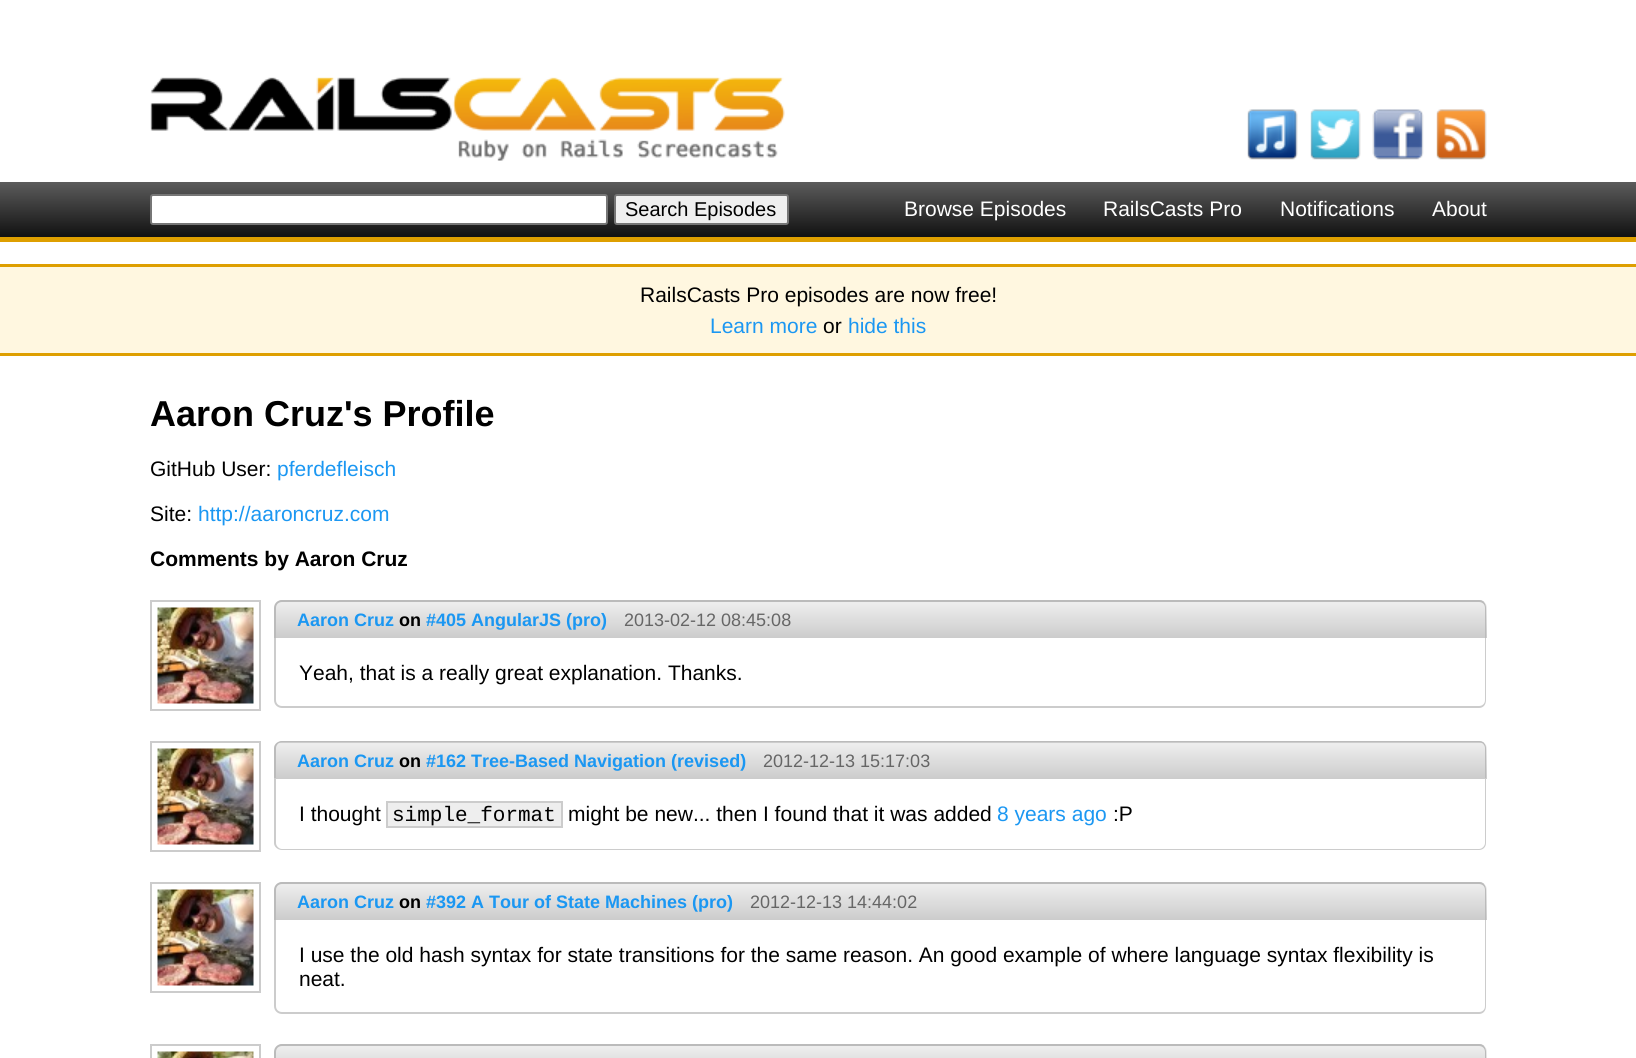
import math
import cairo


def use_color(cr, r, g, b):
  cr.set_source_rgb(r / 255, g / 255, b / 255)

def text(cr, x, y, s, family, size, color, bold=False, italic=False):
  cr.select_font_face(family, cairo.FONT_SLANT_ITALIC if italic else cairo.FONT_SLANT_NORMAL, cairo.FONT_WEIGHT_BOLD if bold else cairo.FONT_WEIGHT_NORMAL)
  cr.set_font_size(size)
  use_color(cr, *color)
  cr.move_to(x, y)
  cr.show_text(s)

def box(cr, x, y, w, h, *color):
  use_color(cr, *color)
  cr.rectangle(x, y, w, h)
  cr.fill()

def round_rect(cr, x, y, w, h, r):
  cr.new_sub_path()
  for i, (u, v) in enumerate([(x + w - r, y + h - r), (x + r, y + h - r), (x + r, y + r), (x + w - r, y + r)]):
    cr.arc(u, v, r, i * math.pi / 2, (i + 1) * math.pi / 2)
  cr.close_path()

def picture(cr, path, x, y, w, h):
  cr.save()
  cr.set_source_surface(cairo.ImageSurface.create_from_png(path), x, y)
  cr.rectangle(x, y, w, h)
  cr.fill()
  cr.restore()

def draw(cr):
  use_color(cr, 255, 255, 255)
  cr.paint()
  picture(cr, "img_01.png", 150, 77, 635, 84)
  picture(cr, "img_02.png", 1247, 109, 51, 51)
  picture(cr, "img_03.png", 1310, 109, 51, 51)
  picture(cr, "img_04.png", 1372, 109, 52, 51)
  picture(cr, "img_05.png", 1436, 109, 51, 51)
  gradient = cairo.LinearGradient(0, 182, 0, 237)
  gradient.add_color_stop_rgba(0, 0.361, 0.361, 0.361, 1)
  gradient.add_color_stop_rgba(1, 0.067, 0.067, 0.067, 1)
  cr.set_source(gradient)
  cr.rectangle(0, 182, 1636, 55)
  cr.fill()
  box(cr, 0, 237, 1636, 5, 222, 159, 0)
  use_color(cr, 255, 255, 255)
  round_rect(cr, 151, 195, 456, 29, 2)
  cr.fill_preserve()
  use_color(cr, 118, 118, 118)
  cr.stroke()
  use_color(cr, 239, 239, 239)
  round_rect(cr, 615, 195, 173, 29, 2)
  cr.fill_preserve()
  use_color(cr, 118, 118, 118)
  cr.stroke()
  box(cr, 0, 267, 1636, 86, 255, 247, 224)
  box(cr, 0, 264, 1636, 3, 222, 159, 0)
  box(cr, 0, 353, 1636, 3, 222, 159, 0)
  cr.rectangle(151, 601, 109, 109)
  use_color(cr, 204, 204, 204)
  cr.stroke()
  picture(cr, "img_06.png", 157, 607, 97, 97)
  cr.save()
  cr.new_path()
  cr.move_to(283, 600)
  cr.line_to(1479, 600)
  cr.curve_to(1483.5, 600, 1487, 603.5, 1487, 608)
  cr.line_to(1487, 638)
  cr.line_to(275, 638)
  cr.line_to(275, 608)
  cr.curve_to(275, 603.5, 278.5, 600, 283, 600)
  cr.close_path()
  cr.clip()
  gradient = cairo.LinearGradient(276, 566, 276, 602)
  gradient.add_color_stop_rgba(0, 0.933, 0.933, 0.933, 1)
  gradient.add_color_stop_rgba(1, 0.8, 0.8, 0.8, 1)
  cr.set_source(gradient)
  cr.rectangle(275, 600, 1212, 2)
  cr.fill()
  gradient = cairo.LinearGradient(276, 602, 276, 638)
  gradient.add_color_stop_rgba(0, 0.933, 0.933, 0.933, 1)
  gradient.add_color_stop_rgba(1, 0.8, 0.8, 0.8, 1)
  cr.set_source(gradient)
  cr.rectangle(276, 602, 1211, 36)
  cr.fill()
  cr.restore()
  use_color(cr, 187, 187, 187)
  cr.set_fill_rule(cairo.FILL_RULE_EVEN_ODD)
  cr.new_path()
  cr.move_to(282, 600)
  cr.line_to(1479, 600)
  cr.curve_to(1483, 600, 1486, 603, 1486, 608)
  cr.line_to(1486, 638)
  cr.line_to(274, 638)
  cr.line_to(274, 608)
  cr.curve_to(274, 603, 278, 600, 282, 600)
  cr.close_path()
  cr.move_to(282, 602)
  cr.line_to(1479, 602)
  cr.curve_to(1482, 602, 1485, 604, 1485, 608)
  cr.line_to(1485, 638)
  cr.line_to(276, 638)
  cr.line_to(276, 608)
  cr.curve_to(276, 604, 279, 602, 282, 602)
  cr.close_path()
  cr.fill()
  use_color(cr, 204, 204, 204)
  cr.new_path()
  cr.move_to(274, 638)
  cr.line_to(1486, 638)
  cr.line_to(1486, 700)
  cr.curve_to(1486, 705, 1483, 708, 1479, 708)
  cr.line_to(282, 708)
  cr.curve_to(278, 708, 274, 705, 274, 700)
  cr.close_path()
  cr.move_to(276, 638)
  cr.line_to(1485, 638)
  cr.line_to(1485, 700)
  cr.curve_to(1485, 704, 1482, 706, 1479, 706)
  cr.line_to(282, 706)
  cr.curve_to(279, 706, 276, 704, 276, 700)
  cr.close_path()
  cr.fill()
  cr.rectangle(151, 742, 109, 109)
  cr.stroke()
  picture(cr, "img_06.png", 157, 748, 97, 97)
  cr.save()
  cr.set_fill_rule(cairo.FILL_RULE_WINDING)
  cr.new_path()
  cr.move_to(283, 741)
  cr.line_to(1479, 741)
  cr.curve_to(1483.5, 741, 1487, 744.5, 1487, 749)
  cr.line_to(1487, 779)
  cr.line_to(275, 779)
  cr.line_to(275, 749)
  cr.curve_to(275, 744.5, 278.5, 741, 283, 741)
  cr.close_path()
  cr.clip()
  gradient = cairo.LinearGradient(276, 707, 276, 743)
  gradient.add_color_stop_rgba(0, 0.933, 0.933, 0.933, 1)
  gradient.add_color_stop_rgba(1, 0.8, 0.8, 0.8, 1)
  cr.set_source(gradient)
  cr.rectangle(275, 741, 1212, 2)
  cr.fill()
  gradient = cairo.LinearGradient(276, 743, 276, 779)
  gradient.add_color_stop_rgba(0, 0.933, 0.933, 0.933, 1)
  gradient.add_color_stop_rgba(1, 0.8, 0.8, 0.8, 1)
  cr.set_source(gradient)
  cr.rectangle(276, 743, 1211, 36)
  cr.fill()
  cr.restore()
  use_color(cr, 187, 187, 187)
  cr.new_path()
  cr.move_to(282, 741)
  cr.line_to(1479, 741)
  cr.curve_to(1483, 741, 1486, 744, 1486, 748)
  cr.line_to(1486, 778)
  cr.line_to(274, 778)
  cr.line_to(274, 748)
  cr.curve_to(274, 744, 278, 741, 282, 741)
  cr.close_path()
  cr.move_to(282, 742)
  cr.line_to(1479, 742)
  cr.curve_to(1482, 742, 1485, 745, 1485, 748)
  cr.line_to(1485, 778)
  cr.line_to(276, 778)
  cr.line_to(276, 748)
  cr.curve_to(276, 745, 279, 742, 282, 742)
  cr.close_path()
  cr.fill()
  use_color(cr, 204, 204, 204)
  cr.new_path()
  cr.move_to(274, 778)
  cr.line_to(1486, 778)
  cr.line_to(1486, 843)
  cr.curve_to(1486, 847, 1483, 850, 1479, 850)
  cr.line_to(282, 850)
  cr.curve_to(278, 850, 274, 847, 274, 843)
  cr.close_path()
  cr.move_to(276, 778)
  cr.line_to(1485, 778)
  cr.line_to(1485, 843)
  cr.curve_to(1485, 846, 1482, 849, 1479, 849)
  cr.line_to(282, 849)
  cr.curve_to(279, 849, 276, 846, 276, 843)
  cr.close_path()
  cr.fill()
  use_color(cr, 238, 238, 238)
  cr.rectangle(387, 802, 175, 25)
  cr.fill_preserve()
  use_color(cr, 204, 204, 204)
  cr.stroke()
  cr.rectangle(151, 883, 109, 109)
  cr.stroke()
  picture(cr, "img_06.png", 157, 889, 97, 97)
  cr.save()
  cr.set_fill_rule(cairo.FILL_RULE_WINDING)
  cr.new_path()
  cr.move_to(283, 882)
  cr.line_to(1479, 882)
  cr.curve_to(1483.5, 882, 1487, 885.5, 1487, 890)
  cr.line_to(1487, 920)
  cr.line_to(275, 920)
  cr.line_to(275, 890)
  cr.curve_to(275, 885.5, 278.5, 882, 283, 882)
  cr.close_path()
  cr.clip()
  gradient = cairo.LinearGradient(276, 848, 276, 884)
  gradient.add_color_stop_rgba(0, 0.933, 0.933, 0.933, 1)
  gradient.add_color_stop_rgba(1, 0.8, 0.8, 0.8, 1)
  cr.set_source(gradient)
  cr.rectangle(275, 882, 1212, 2)
  cr.fill()
  gradient = cairo.LinearGradient(276, 884, 276, 920)
  gradient.add_color_stop_rgba(0, 0.933, 0.933, 0.933, 1)
  gradient.add_color_stop_rgba(1, 0.8, 0.8, 0.8, 1)
  cr.set_source(gradient)
  cr.rectangle(276, 884, 1211, 36)
  cr.fill()
  cr.restore()
  use_color(cr, 187, 187, 187)
  cr.new_path()
  cr.move_to(282, 882)
  cr.line_to(1479, 882)
  cr.curve_to(1483, 882, 1486, 885, 1486, 890)
  cr.line_to(1486, 920)
  cr.line_to(274, 920)
  cr.line_to(274, 890)
  cr.curve_to(274, 885, 278, 882, 282, 882)
  cr.close_path()
  cr.move_to(282, 884)
  cr.line_to(1479, 884)
  cr.curve_to(1482, 884, 1485, 886, 1485, 890)
  cr.line_to(1485, 920)
  cr.line_to(276, 920)
  cr.line_to(276, 890)
  cr.curve_to(276, 886, 279, 884, 282, 884)
  cr.close_path()
  cr.fill()
  use_color(cr, 204, 204, 204)
  cr.new_path()
  cr.move_to(274, 920)
  cr.line_to(1486, 920)
  cr.line_to(1486, 1006)
  cr.curve_to(1486, 1011, 1483, 1014, 1479, 1014)
  cr.line_to(282, 1014)
  cr.curve_to(278, 1014, 274, 1011, 274, 1006)
  cr.close_path()
  cr.move_to(276, 920)
  cr.line_to(1485, 920)
  cr.line_to(1485, 1006)
  cr.curve_to(1485, 1010, 1482, 1012, 1479, 1012)
  cr.line_to(282, 1012)
  cr.curve_to(279, 1012, 276, 1010, 276, 1006)
  cr.close_path()
  cr.fill()
  cr.rectangle(151, 1045, 109, 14)
  cr.stroke()
  picture(cr, "img_07.png", 157, 1051, 97, 7)
  cr.save()
  cr.set_fill_rule(cairo.FILL_RULE_WINDING)
  cr.new_path()
  cr.move_to(283, 1044)
  cr.line_to(1479, 1044)
  cr.curve_to(1483.5, 1044, 1487, 1047.5, 1487, 1052)
  cr.line_to(1487, 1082)
  cr.line_to(275, 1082)
  cr.line_to(275, 1052)
  cr.curve_to(275, 1047.5, 278.5, 1044, 283, 1044)
  cr.close_path()
  cr.clip()
  gradient = cairo.LinearGradient(276, 1010, 276, 1046)
  gradient.add_color_stop_rgba(0, 0.933, 0.933, 0.933, 1)
  gradient.add_color_stop_rgba(1, 0.8, 0.8, 0.8, 1)
  cr.set_source(gradient)
  cr.rectangle(275, 1044, 1212, 2)
  cr.fill()
  gradient = cairo.LinearGradient(276, 1046, 276, 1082)
  gradient.add_color_stop_rgba(0, 0.933, 0.933, 0.933, 1)
  gradient.add_color_stop_rgba(1, 0.8, 0.8, 0.8, 1)
  cr.set_source(gradient)
  cr.rectangle(276, 1046, 1211, 12)
  cr.fill()
  cr.restore()
  use_color(cr, 187, 187, 187)
  cr.new_path()
  cr.move_to(282, 1044)
  cr.line_to(1479, 1044)
  cr.curve_to(1483, 1044, 1486, 1047, 1486, 1052)
  cr.line_to(1486, 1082)
  cr.line_to(274, 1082)
  cr.line_to(274, 1052)
  cr.curve_to(274, 1047, 278, 1044, 282, 1044)
  cr.close_path()
  cr.move_to(282, 1046)
  cr.line_to(1479, 1046)
  cr.curve_to(1482, 1046, 1485, 1048, 1485, 1052)
  cr.line_to(1485, 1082)
  cr.line_to(276, 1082)
  cr.line_to(276, 1052)
  cr.curve_to(276, 1048, 279, 1046, 282, 1046)
  cr.close_path()
  cr.fill()
  text(cr, 625, 216, "Search Episodes", "Liberation Sans", 20, (0, 0, 0))
  text(cr, 904, 216, "Browse Episodes", "Liberation Sans", 21, (255, 255, 255))
  text(cr, 1103, 216, "RailsCasts Pro", "Liberation Sans", 21, (255, 255, 255))
  text(cr, 1280, 216, "Notifications", "Liberation Sans", 21, (255, 255, 255))
  text(cr, 1432, 216, "About", "Liberation Sans", 21, (255, 255, 255))
  text(cr, 640, 302, "RailsCasts Pro episodes are now free!", "Liberation Sans", 21, (0, 0, 0))
  text(cr, 710, 333, "Learn more", "Liberation Sans", 21, (27, 151, 242))
  text(cr, 823, 333, "or", "Liberation Sans", 21, (0, 0, 0))
  text(cr, 848, 333, "hide this", "Liberation Sans", 21, (27, 151, 242))
  text(cr, 150, 426, "Aaron Cruz's Profile", "Liberation Sans", 36, (0, 0, 0), bold=True)
  text(cr, 150, 476, "GitHub User:", "Liberation Sans", 21, (0, 0, 0))
  text(cr, 277, 476, "pferdefleisch", "Liberation Sans", 21, (27, 151, 242))
  text(cr, 150, 521, "Site:", "Liberation Sans", 21, (0, 0, 0))
  text(cr, 198, 521, "http://aaroncruz.com", "Liberation Sans", 21, (27, 151, 242))
  text(cr, 150, 566, "Comments by Aaron Cruz", "Liberation Sans", 21, (0, 0, 0), bold=True)
  text(cr, 297, 626, "Aaron Cruz", "Liberation Sans", 18, (27, 151, 242), bold=True)
  text(cr, 399, 626, "on", "Liberation Sans", 18, (0, 0, 0), bold=True)
  text(cr, 426, 626, "#405 AngularJS (pro)", "Liberation Sans", 18, (27, 151, 242), bold=True)
  text(cr, 624, 626, "2013-02-12 08:45:08", "Liberation Sans", 18, (102, 102, 102))
  text(cr, 299, 680, "Yeah, that is a really great explanation. Thanks.", "Liberation Sans", 21, (0, 0, 0))
  text(cr, 297, 767, "Aaron Cruz", "Liberation Sans", 18, (27, 151, 242), bold=True)
  text(cr, 399, 767, "on", "Liberation Sans", 18, (0, 0, 0), bold=True)
  text(cr, 426, 767, "#162 Tree-Based Navigation (revised)", "Liberation Sans", 18, (27, 151, 242), bold=True)
  text(cr, 763, 767, "2012-12-13 15:17:03", "Liberation Sans", 18, (102, 102, 102))
  text(cr, 299, 821, "I thought", "Liberation Sans", 21, (0, 0, 0))
  text(cr, 392, 821, "simple_format", "Liberation Mono", 21, (0, 0, 0))
  text(cr, 568, 821, "might be new... then I found that it was added", "Liberation Sans", 21, (0, 0, 0))
  text(cr, 997, 821, "8 years ago", "Liberation Sans", 21, (27, 151, 242))
  text(cr, 1113, 821, ":P", "Liberation Sans", 21, (0, 0, 0))
  text(cr, 297, 908, "Aaron Cruz", "Liberation Sans", 18, (27, 151, 242), bold=True)
  text(cr, 399, 908, "on", "Liberation Sans", 18, (0, 0, 0), bold=True)
  text(cr, 426, 908, "#392 A Tour of State Machines (pro)", "Liberation Sans", 18, (27, 151, 242), bold=True)
  text(cr, 750, 908, "2012-12-13 14:44:02", "Liberation Sans", 18, (102, 102, 102))
  text(cr, 299, 962, "I use the old hash syntax for state transitions for the same reason. An good example of where language syntax flexibility is", "Liberation Sans", 21, (0, 0, 0))
  text(cr, 299, 986, "neat.", "Liberation Sans", 21, (0, 0, 0))


surface = cairo.ImageSurface(cairo.FORMAT_RGB24, 1636, 1058)
cr = cairo.Context(surface)
options = cairo.FontOptions()
options.set_hint_metrics(cairo.HINT_METRICS_OFF)
options.set_hint_style(cairo.HINT_STYLE_NONE)
cr.set_font_options(options)
cr.set_miter_limit(4)
draw(cr)
surface.write_to_png("out.png")
